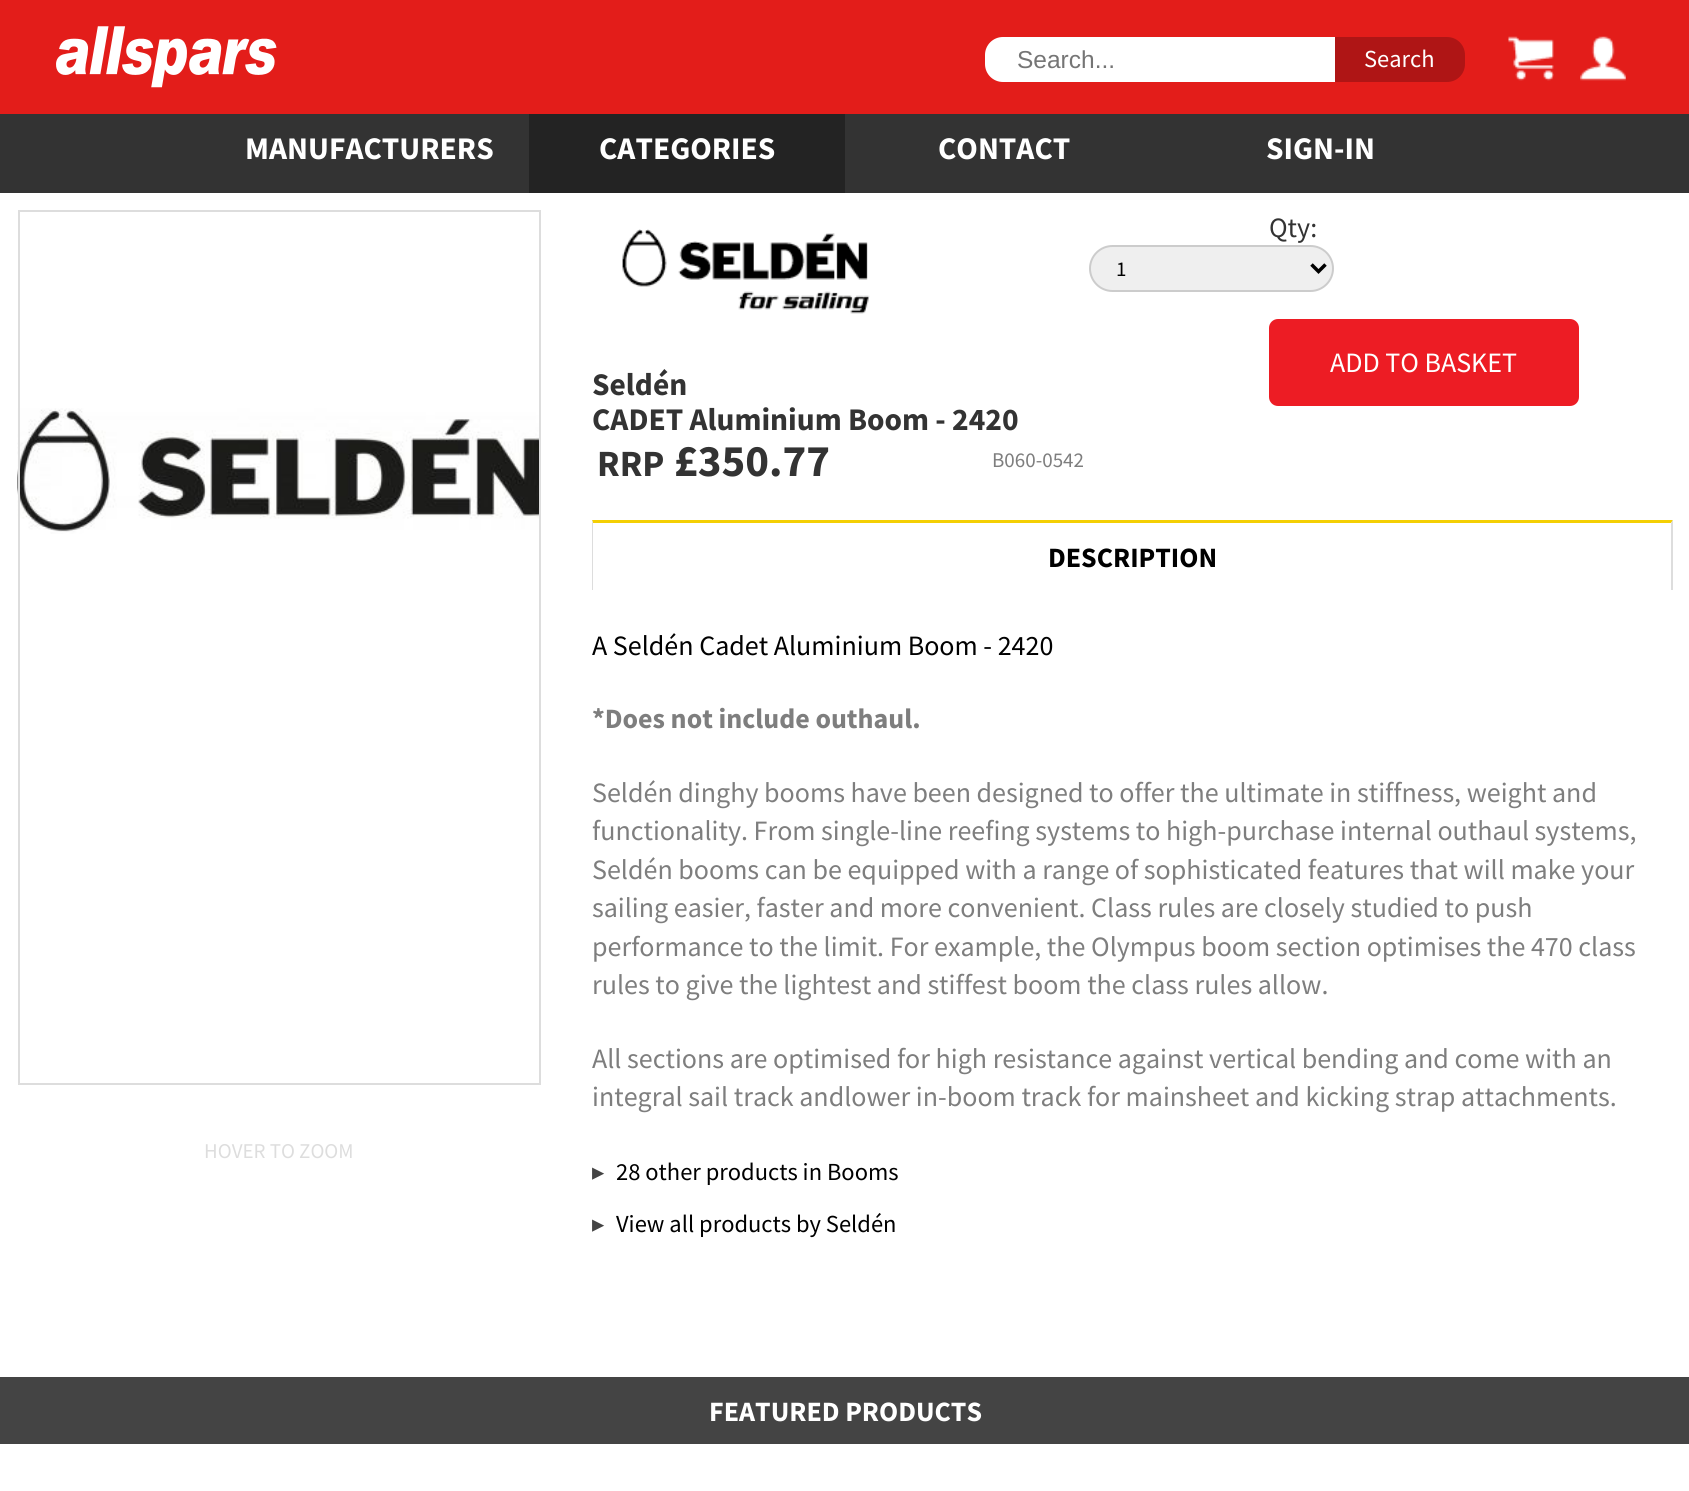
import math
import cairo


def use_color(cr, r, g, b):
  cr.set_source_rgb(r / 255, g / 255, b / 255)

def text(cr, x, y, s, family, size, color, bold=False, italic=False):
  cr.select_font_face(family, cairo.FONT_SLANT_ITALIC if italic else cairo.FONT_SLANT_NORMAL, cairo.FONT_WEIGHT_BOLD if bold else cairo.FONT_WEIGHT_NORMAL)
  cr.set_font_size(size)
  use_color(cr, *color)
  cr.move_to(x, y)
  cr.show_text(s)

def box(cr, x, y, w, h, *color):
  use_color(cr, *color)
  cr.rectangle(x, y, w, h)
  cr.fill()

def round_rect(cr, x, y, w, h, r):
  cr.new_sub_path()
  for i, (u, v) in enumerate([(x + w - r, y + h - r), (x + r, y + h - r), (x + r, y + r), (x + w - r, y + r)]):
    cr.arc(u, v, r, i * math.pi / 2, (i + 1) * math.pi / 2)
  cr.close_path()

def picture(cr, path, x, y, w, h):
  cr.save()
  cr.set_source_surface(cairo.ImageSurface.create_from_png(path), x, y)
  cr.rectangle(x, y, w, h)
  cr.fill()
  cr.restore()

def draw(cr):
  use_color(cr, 255, 255, 255)
  cr.paint()
  box(cr, 0, 0, 1689, 114, 227, 29, 26)
  picture(cr, "img_01.png", 56, 26, 221, 62)
  use_color(cr, 255, 255, 255)
  cr.new_path()
  cr.move_to(1003, 37)
  cr.line_to(1335, 37)
  cr.line_to(1335, 82)
  cr.line_to(1003, 82)
  cr.curve_to(993, 82, 985, 74, 985, 64)
  cr.line_to(985, 55)
  cr.curve_to(985, 45, 993, 37, 1003, 37)
  cr.close_path()
  cr.fill()
  use_color(cr, 175, 21, 21)
  cr.new_path()
  cr.move_to(1335, 37)
  cr.line_to(1447, 37)
  cr.curve_to(1457, 37, 1465, 45, 1465, 55)
  cr.line_to(1465, 64)
  cr.curve_to(1465, 74, 1457, 82, 1447, 82)
  cr.line_to(1335, 82)
  cr.close_path()
  cr.fill()
  picture(cr, "img_02.png", 1508, 36, 46, 45)
  picture(cr, "img_03.png", 1580, 36, 46, 45)
  box(cr, 0, 114, 1689, 79, 51, 51, 51)
  box(cr, 529, 114, 316, 79, 35, 35, 35)
  use_color(cr, 239, 239, 239)
  round_rect(cr, 1090, 246, 243, 45, 22.5)
  cr.fill_preserve()
  use_color(cr, 204, 204, 204)
  cr.stroke()
  cr.new_path()
  cr.move_to(1311.5, 264.5)
  cr.line_to(1318.5, 271.5)
  cr.line_to(1325.5, 264.5)
  use_color(cr, 0, 0, 0)
  cr.set_line_width(3.5)
  cr.stroke()
  use_color(cr, 237, 28, 36)
  round_rect(cr, 1269, 319, 310, 87, 9)
  cr.fill()
  picture(cr, "img_04.png", 622, 229, 248, 85)
  picture(cr, "img_05.png", 17, 408, 522, 126)
  cr.rectangle(19, 211, 521, 873)
  use_color(cr, 221, 221, 221)
  cr.set_line_width(2)
  cr.stroke()
  use_color(cr, 244, 207, 4)
  cr.new_path()
  cr.move_to(592, 520)
  cr.line_to(1673, 520)
  cr.line_to(1671, 523)
  cr.line_to(593, 523)
  cr.close_path()
  cr.fill()
  use_color(cr, 221, 221, 221)
  cr.new_path()
  cr.move_to(1673, 520)
  cr.line_to(1673, 592)
  cr.line_to(1671, 590)
  cr.line_to(1671, 523)
  cr.close_path()
  cr.fill()
  cr.new_path()
  cr.move_to(592, 592)
  cr.line_to(592, 520)
  cr.line_to(593, 523)
  cr.line_to(593, 590)
  cr.close_path()
  cr.fill()
  box(cr, 592, 590, 1081, 2, 255, 255, 255)
  box(cr, 0, 1377, 1689, 67, 68, 68, 68)
  text(cr, 1017, 68, "Search...", "Liberation Sans", 24.5, (117, 117, 117))
  text(cr, 1364, 67, "Search", "Source Sans Pro", 24.5, (255, 255, 255))
  text(cr, 245, 159, "MANUFACTURERS", "Source Sans Pro", 31.5, (255, 255, 255), bold=True)
  text(cr, 599, 159, "CATEGORIES", "Source Sans Pro", 31.5, (255, 255, 255), bold=True)
  text(cr, 938, 159, "CONTACT", "Source Sans Pro", 31.5, (255, 255, 255), bold=True)
  text(cr, 1266, 159, "SIGN-IN", "Source Sans Pro", 31.5, (255, 255, 255), bold=True)
  text(cr, 1269, 237, "Qty:", "Source Sans Pro", 28, (51, 51, 51))
  text(cr, 1116, 276, "1", "Source Sans Pro", 21, (0, 0, 0))
  text(cr, 1330, 372, "ADD TO BASKET", "Source Sans Pro", 28, (255, 255, 255))
  text(cr, 592, 395, "Seldén", "Source Sans Pro", 31.5, (51, 51, 51), bold=True)
  text(cr, 592, 430, "CADET Aluminium Boom - 2420", "Source Sans Pro", 31.5, (51, 51, 51), bold=True)
  text(cr, 597, 476, "RRP", "Source Sans Pro", 37, (51, 51, 51), bold=True)
  text(cr, 674, 476, "£350.77", "Source Sans Pro", 45, (51, 51, 51), bold=True)
  text(cr, 992, 467, "B060-0542", "Source Sans Pro", 21, (126, 126, 126))
  text(cr, 204, 1158, "HOVER TO ZOOM", "Source Sans Pro", 21, (221, 221, 221))
  text(cr, 1048, 567, "DESCRIPTION", "Source Sans Pro", 28, (0, 0, 0), bold=True)
  text(cr, 592, 655, "A Seldén Cadet Aluminium Boom - 2420", "Source Sans Pro", 28, (0, 0, 0))
  text(cr, 592, 728, "*Does not include outhaul.", "Source Sans Pro", 28, (126, 126, 126), bold=True)
  text(cr, 592, 802, "Seldén dinghy booms have been designed to offer the ultimate in stiffness, weight and", "Source Sans Pro", 28, (126, 126, 126))
  text(cr, 592, 840, "functionality. From single-line reefing systems to high-purchase internal outhaul systems,", "Source Sans Pro", 28, (126, 126, 126))
  text(cr, 592, 879, "Seldén booms can be equipped with a range of sophisticated features that will make your", "Source Sans Pro", 28, (126, 126, 126))
  text(cr, 592, 917, "sailing easier, faster and more convenient. Class rules are closely studied to push", "Source Sans Pro", 28, (126, 126, 126))
  text(cr, 592, 956, "performance to the limit. For example, the Olympus boom section optimises the 470 class", "Source Sans Pro", 28, (126, 126, 126))
  text(cr, 592, 994, "rules to give the lightest and stiffest boom the class rules allow.", "Source Sans Pro", 28, (126, 126, 126))
  text(cr, 592, 1068, "All sections are optimised for high resistance against vertical bending and come with an", "Source Sans Pro", 28, (126, 126, 126))
  text(cr, 592, 1106, "integral sail track andlower in-boom track for mainsheet and kicking strap attachments.", "Source Sans Pro", 28, (126, 126, 126))
  cr.save()
  cr.rectangle(592, 607, 1081, 648)
  cr.clip()
  text(cr, 592, 1180, "▸", "DejaVu Sans", 24.5, (68, 68, 68))
  cr.restore()
  text(cr, 616, 1180, "28 other products in Booms", "Source Sans Pro", 24.5, (0, 0, 0))
  cr.save()
  cr.rectangle(592, 607, 1081, 648)
  cr.clip()
  text(cr, 592, 1232, "▸", "DejaVu Sans", 24.5, (68, 68, 68))
  cr.restore()
  text(cr, 616, 1232, "View all products by Seldén", "Source Sans Pro", 24.5, (0, 0, 0))
  text(cr, 709, 1421, "FEATURED PRODUCTS", "Source Sans Pro", 28, (255, 255, 255), bold=True)


surface = cairo.ImageSurface(cairo.FORMAT_RGB24, 1689, 1491)
cr = cairo.Context(surface)
options = cairo.FontOptions()
options.set_hint_metrics(cairo.HINT_METRICS_OFF)
options.set_hint_style(cairo.HINT_STYLE_NONE)
cr.set_font_options(options)
cr.set_miter_limit(4)
draw(cr)
surface.write_to_png("out.png")
